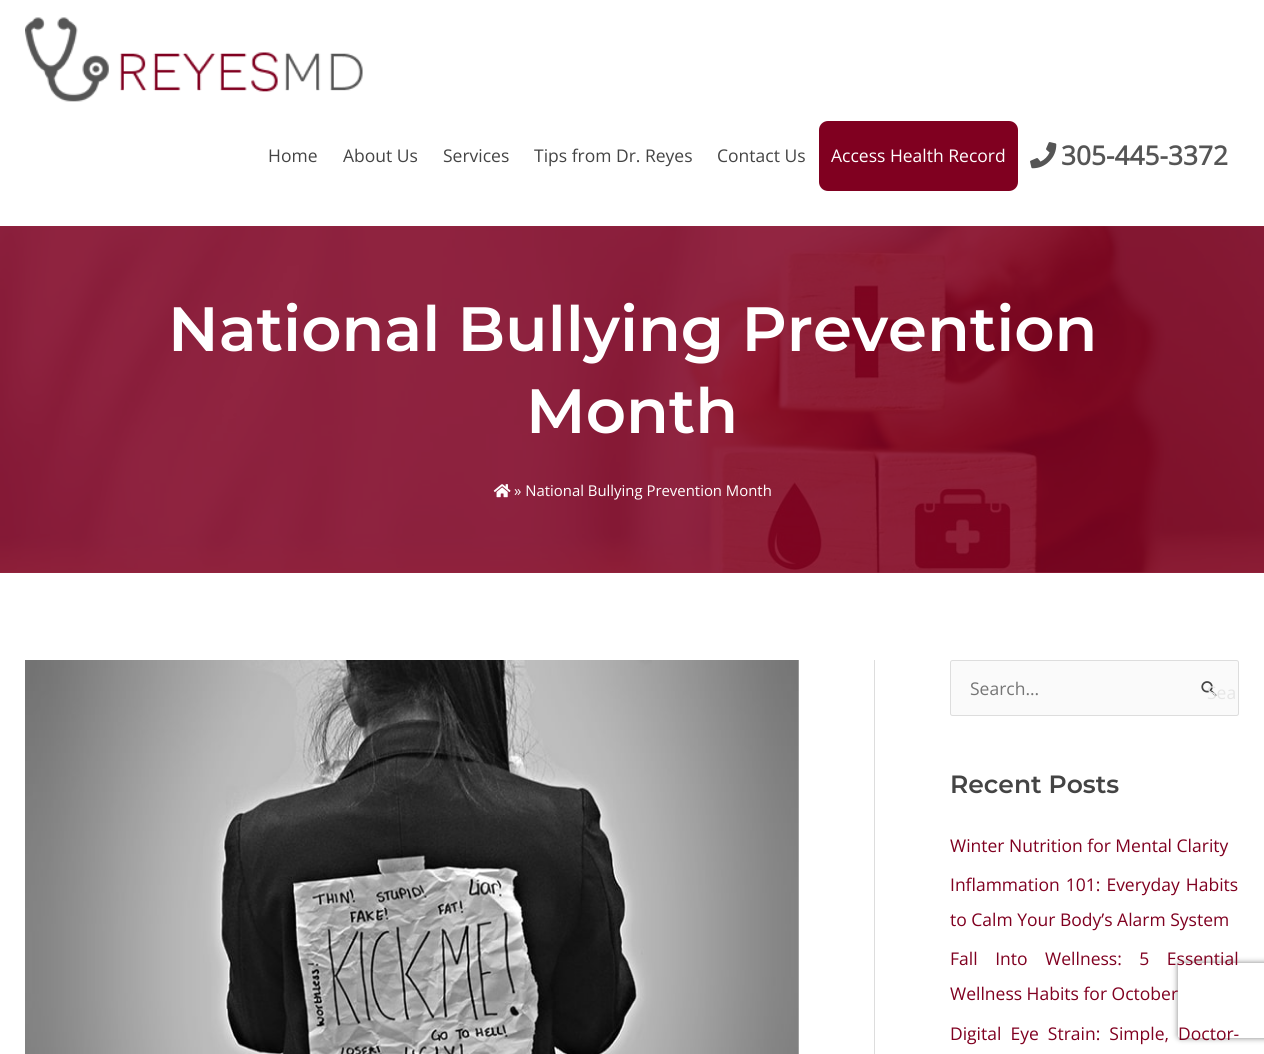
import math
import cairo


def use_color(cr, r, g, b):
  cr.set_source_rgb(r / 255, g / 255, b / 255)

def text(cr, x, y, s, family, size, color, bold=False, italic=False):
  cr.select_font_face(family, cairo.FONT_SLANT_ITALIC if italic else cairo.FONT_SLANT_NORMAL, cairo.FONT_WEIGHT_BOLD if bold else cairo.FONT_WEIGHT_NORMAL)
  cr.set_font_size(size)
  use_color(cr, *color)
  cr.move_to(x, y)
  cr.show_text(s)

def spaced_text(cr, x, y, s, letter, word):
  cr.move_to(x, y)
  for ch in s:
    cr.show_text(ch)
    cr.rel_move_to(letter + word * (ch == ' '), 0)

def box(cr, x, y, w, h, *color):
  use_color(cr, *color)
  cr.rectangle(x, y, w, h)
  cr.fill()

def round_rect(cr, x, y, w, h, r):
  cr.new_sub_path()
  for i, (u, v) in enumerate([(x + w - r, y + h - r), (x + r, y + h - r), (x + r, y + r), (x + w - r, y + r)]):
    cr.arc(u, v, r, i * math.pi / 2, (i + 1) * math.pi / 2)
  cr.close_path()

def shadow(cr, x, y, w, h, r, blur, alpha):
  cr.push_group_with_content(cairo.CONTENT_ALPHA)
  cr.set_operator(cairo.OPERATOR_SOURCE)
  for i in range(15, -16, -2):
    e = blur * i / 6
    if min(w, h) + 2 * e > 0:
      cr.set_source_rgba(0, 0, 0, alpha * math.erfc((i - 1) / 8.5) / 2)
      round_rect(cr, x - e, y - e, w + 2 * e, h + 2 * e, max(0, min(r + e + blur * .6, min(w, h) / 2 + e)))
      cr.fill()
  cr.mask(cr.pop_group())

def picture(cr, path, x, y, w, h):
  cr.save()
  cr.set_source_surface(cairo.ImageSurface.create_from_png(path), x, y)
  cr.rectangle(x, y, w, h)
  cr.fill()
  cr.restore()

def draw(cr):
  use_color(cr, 255, 255, 255)
  cr.paint()
  box(cr, 0, 226, 1264, 347, 147, 38, 65)
  picture(cr, "img_01.png", 25, 17, 338, 85)
  use_color(cr, 128, 0, 32)
  round_rect(cr, 819, 121, 199, 70, 9)
  cr.fill()
  picture(cr, "img_02.png", 1030, 142, 27, 27)
  picture(cr, "img_03.png", 0, 226, 1264, 347)
  picture(cr, "img_04.png", 493, 484, 18, 14)
  box(cr, 874, 660, 1, 394, 221, 221, 221)
  picture(cr, "img_05.png", 25, 660, 774, 394)
  use_color(cr, 250, 250, 250)
  round_rect(cr, 950.5, 660.5, 288, 55, 2)
  cr.fill_preserve()
  use_color(cr, 221, 221, 221)
  cr.set_line_width(1)
  cr.stroke()
  picture(cr, "img_06.png", 1201, 681, 16, 16)
  cr.save()
  cr.set_fill_rule(cairo.FILL_RULE_EVEN_ODD)
  cr.new_path()
  cr.move_to(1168, 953)
  cr.line_to(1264, 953)
  cr.line_to(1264, 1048)
  cr.line_to(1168, 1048)
  cr.close_path()
  cr.move_to(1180.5, 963)
  cr.line_to(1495.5, 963)
  cr.curve_to(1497, 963, 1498, 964, 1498, 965.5)
  cr.line_to(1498, 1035.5)
  cr.curve_to(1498, 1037, 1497, 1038, 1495.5, 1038)
  cr.line_to(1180.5, 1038)
  cr.curve_to(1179, 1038, 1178, 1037, 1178, 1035.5)
  cr.line_to(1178, 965.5)
  cr.curve_to(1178, 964, 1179, 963, 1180.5, 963)
  cr.close_path()
  cr.clip()
  use_color(cr, 128, 128, 128)
  shadow(cr, 1178, 963, 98, 75, 2.5, 3, 1)
  cr.restore()
  text(cr, 268, 162, "Home", "Open Sans", 17.5, (68, 68, 68))
  text(cr, 343, 162, "About Us", "Open Sans", 17.5, (68, 68, 68))
  text(cr, 443, 162, "Services", "Open Sans", 17.5, (68, 68, 68))
  text(cr, 534, 162, "Tips from Dr. Reyes", "Open Sans", 17.5, (68, 68, 68))
  text(cr, 717, 162, "Contact Us", "Open Sans", 17.5, (68, 68, 68))
  text(cr, 831, 162, "Access Health Record", "Open Sans", 17.5, (255, 255, 255))
  text(cr, 1061, 165, "305-445-3372", "Open Sans", 26.25, (85, 85, 85), bold=True)
  text(cr, 168, 351, "National Bullying Prevention", "Montserrat Thin", 62.5, (255, 255, 255))
  text(cr, 526, 433, "Month", "Montserrat Thin", 62.5, (255, 255, 255))
  text(cr, 514, 496, "» National Bullying Prevention Month", "Open Sans", 14.9, (255, 255, 255))
  text(cr, 970, 695, "Search...", "Open Sans", 17.5, (117, 117, 117))
  text(cr, 1207, 699, "Sea", "Open Sans", 17.5, (230, 230, 230))
  text(cr, 950, 793, "Recent Posts", "Montserrat Thin", 25, (68, 68, 68))
  text(cr, 950, 852, "Winter Nutrition for Mental Clarity", "Open Sans", 17.5, (128, 0, 32))
  spaced_text(cr, 950, 891, "Inflammation 101: Everyday Habits", 0, 1.5)
  text(cr, 950, 926, "to Calm Your Body’s Alarm System", "Open Sans", 17.5, (128, 0, 32))
  spaced_text(cr, 950, 965, "Fall Into Wellness: 5 Essential", 0, 13)
  text(cr, 950, 1000, "Wellness Habits for October", "Open Sans", 17.5, (128, 0, 32))
  spaced_text(cr, 950, 1040, "Digital Eye Strain: Simple, Doctor-", 0, 4.5)


surface = cairo.ImageSurface(cairo.FORMAT_RGB24, 1264, 1054)
cr = cairo.Context(surface)
options = cairo.FontOptions()
options.set_hint_metrics(cairo.HINT_METRICS_OFF)
options.set_hint_style(cairo.HINT_STYLE_NONE)
cr.set_font_options(options)
cr.set_miter_limit(4)
draw(cr)
surface.write_to_png("out.png")
